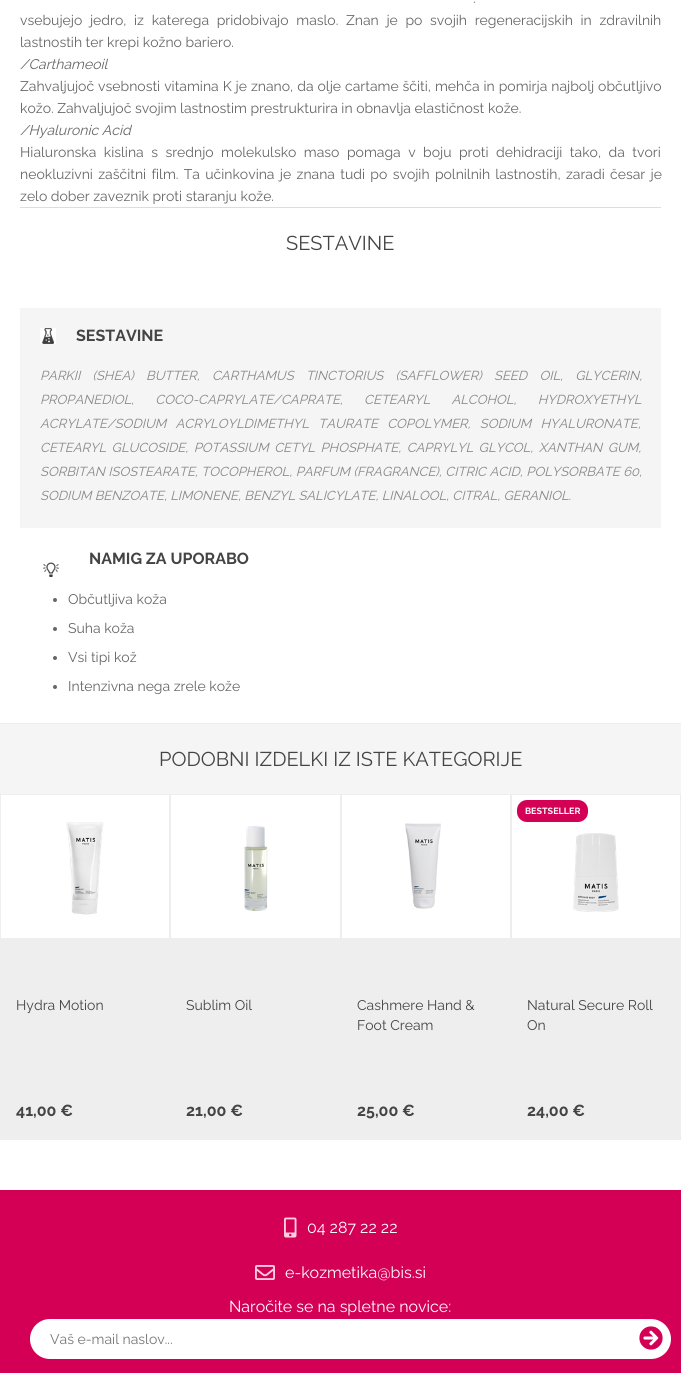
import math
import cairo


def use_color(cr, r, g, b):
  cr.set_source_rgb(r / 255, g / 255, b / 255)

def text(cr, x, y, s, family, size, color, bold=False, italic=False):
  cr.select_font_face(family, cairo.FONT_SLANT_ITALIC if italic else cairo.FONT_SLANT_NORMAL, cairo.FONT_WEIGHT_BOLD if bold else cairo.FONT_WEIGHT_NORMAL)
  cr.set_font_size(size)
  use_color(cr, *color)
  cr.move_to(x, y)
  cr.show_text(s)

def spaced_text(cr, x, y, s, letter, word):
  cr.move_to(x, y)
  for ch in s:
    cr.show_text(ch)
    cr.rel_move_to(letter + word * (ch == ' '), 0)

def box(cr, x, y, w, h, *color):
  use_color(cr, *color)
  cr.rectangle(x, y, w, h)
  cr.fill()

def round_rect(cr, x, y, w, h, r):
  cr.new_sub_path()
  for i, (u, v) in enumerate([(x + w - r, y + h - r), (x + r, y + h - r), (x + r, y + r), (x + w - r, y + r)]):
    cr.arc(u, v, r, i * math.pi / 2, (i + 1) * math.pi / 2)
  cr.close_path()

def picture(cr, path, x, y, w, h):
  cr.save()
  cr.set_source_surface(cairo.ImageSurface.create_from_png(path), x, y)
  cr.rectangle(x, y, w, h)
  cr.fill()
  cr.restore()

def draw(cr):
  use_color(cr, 255, 255, 255)
  cr.paint()
  box(cr, 20, 207, 641, 1, 221, 221, 221)
  box(cr, 20, 308, 641, 220, 245, 245, 245)
  picture(cr, "img_01.png", 40, 328, 16, 16)
  picture(cr, "img_02.png", 43, 562, 16, 15)
  use_color(cr, 102, 102, 102)
  cr.arc(55, 600, 2, 0, 2 * math.pi)
  cr.fill()
  cr.arc(55, 629, 2, 0, 2 * math.pi)
  cr.fill()
  cr.arc(55, 658, 2, 0, 2 * math.pi)
  cr.fill()
  cr.arc(55, 687, 2, 0, 2 * math.pi)
  cr.fill()
  box(cr, 0, 724, 681, 70, 245, 245, 245)
  box(cr, 0, 723, 681, 1, 238, 238, 238)
  box(cr, 0, 794, 681, 346, 238, 238, 238)
  box(cr, 1, 795, 168, 143, 255, 255, 255)
  picture(cr, "img_03.png", 66, 822, 38, 93)
  box(cr, 171, 795, 169, 143, 255, 255, 255)
  picture(cr, "img_04.png", 244, 826, 24, 86)
  box(cr, 342, 795, 168, 143, 255, 255, 255)
  picture(cr, "img_05.png", 405, 823, 36, 86)
  box(cr, 512, 795, 168, 143, 255, 255, 255)
  picture(cr, "img_06.png", 573, 833, 46, 79)
  use_color(cr, 211, 0, 86)
  round_rect(cr, 517, 800, 71, 22, 10)
  cr.fill()
  box(cr, 0, 1190, 681, 183, 211, 0, 86)
  picture(cr, "img_07.png", 284, 1217, 13, 21)
  picture(cr, "img_08.png", 255, 1265, 20, 15)
  use_color(cr, 255, 255, 255)
  round_rect(cr, 30, 1319, 641, 40, 20)
  cr.fill()
  picture(cr, "img_09.png", 639, 1326, 24, 24)
  cr.select_font_face("Raleway")
  cr.set_font_size(14)
  use_color(cr, 102, 102, 102)
  spaced_text(cr, 473, 3, ".", 0, 2)
  spaced_text(cr, 20, 25, "vsebujejo jedro, iz katerega pridobivajo maslo. Znan je po svojih regeneracijskih in zdravilnih", 0, 4.1)
  text(cr, 20, 47, "lastnostih ter krepi kožno bariero.", "Raleway", 14, (102, 102, 102))
  text(cr, 20, 69, "/Carthameoil", "Raleway", 14, (102, 102, 102), italic=True)
  cr.select_font_face("Raleway")
  spaced_text(cr, 20, 91, "Zahvaljujoč vsebnosti vitamina K je znano, da olje cartame ščiti, mehča in pomirja najbolj občutljivo", 0, 0.4)
  text(cr, 20, 113, "kožo. Zahvaljujoč svojim lastnostim prestrukturira in obnavlja elastičnost kože.", "Raleway", 14, (102, 102, 102))
  text(cr, 20, 135, "/Hyaluronic Acid", "Raleway", 14, (102, 102, 102), italic=True)
  cr.select_font_face("Raleway")
  spaced_text(cr, 20, 157, "Hialuronska kislina s srednjo molekulsko maso pomaga v boju proti dehidraciji tako, da tvori", 0, 3.9)
  spaced_text(cr, 20, 179, "neokluzivni zaščitni film. Ta učinkovina je znana tudi po svojih polnilnih lastnostih, zaradi česar je", 0, 1.75)
  text(cr, 20, 201, "zelo dober zaveznik proti staranju kože.", "Raleway", 14, (102, 102, 102))
  text(cr, 286, 250, "SESTAVINE", "Raleway", 20, (68, 68, 68))
  text(cr, 76, 341, "SESTAVINE", "Raleway", 16, (68, 68, 68), bold=True)
  cr.select_font_face("Raleway", cairo.FONT_SLANT_ITALIC)
  cr.set_font_size(13)
  use_color(cr, 136, 136, 136)
  spaced_text(cr, 40, 380, "PARKII (SHEA) BUTTER, CARTHAMUS TINCTORIUS (SAFFLOWER) SEED OIL, GLYCERIN,", 0, 9)
  spaced_text(cr, 40, 404, "PROPANEDIOL, COCO-CAPRYLATE/CAPRATE, CETEARYL ALCOHOL, HYDROXYETHYL", 0, 18)
  spaced_text(cr, 40, 428, "ACRYLATE/SODIUM ACRYLOYLDIMETHYL TAURATE COPOLYMER, SODIUM HYALURONATE,", 0, 6)
  spaced_text(cr, 40, 452, "CETEARYL GLUCOSIDE, POTASSIUM CETYL PHOSPHATE, CAPRYLYL GLYCOL, XANTHAN GUM,", 0, 2.25)
  spaced_text(cr, 40, 476, "SORBITAN ISOSTEARATE, TOCOPHEROL, PARFUM (FRAGRANCE), CITRIC ACID, POLYSORBATE 60,", 0, 0.25)
  text(cr, 40, 500, "SODIUM BENZOATE, LIMONENE, BENZYL SALICYLATE, LINALOOL, CITRAL, GERANIOL.", "Raleway", 13, (136, 136, 136), italic=True)
  text(cr, 89, 564, "NAMIG ZA UPORABO", "Raleway", 16, (68, 68, 68), bold=True)
  text(cr, 68, 604, "Občutljiva koža", "Raleway", 14, (102, 102, 102))
  text(cr, 68, 633, "Suha koža", "Raleway", 14, (102, 102, 102))
  text(cr, 68, 662, "Vsi tipi kož", "Raleway", 14, (102, 102, 102))
  text(cr, 68, 691, "Intenzivna nega zrele kože", "Raleway", 14, (102, 102, 102))
  text(cr, 159, 766, "PODOBNI IZDELKI IZ ISTE KATEGORIJE", "Raleway", 20, (68, 68, 68))
  text(cr, 16, 1010, "Hydra Motion", "Raleway", 14, (68, 68, 68))
  text(cr, 16, 1116, "41,00 €", "Raleway", 16, (68, 68, 68), bold=True)
  text(cr, 186, 1010, "Sublim Oil", "Raleway", 14, (68, 68, 68))
  text(cr, 186, 1116, "21,00 €", "Raleway", 16, (68, 68, 68), bold=True)
  text(cr, 357, 1010, "Cashmere Hand &", "Raleway", 14, (68, 68, 68))
  text(cr, 357, 1030, "Foot Cream", "Raleway", 14, (68, 68, 68))
  text(cr, 357, 1116, "25,00 €", "Raleway", 16, (68, 68, 68), bold=True)
  text(cr, 525, 814, "BESTSELLER", "Raleway", 9, (255, 255, 255), bold=True)
  text(cr, 527, 1010, "Natural Secure Roll", "Raleway", 14, (68, 68, 68))
  text(cr, 527, 1030, "On", "Raleway", 14, (68, 68, 68))
  text(cr, 527, 1116, "24,00 €", "Raleway", 16, (68, 68, 68), bold=True)
  text(cr, 307, 1233, "04 287 22 22", "Raleway", 16, (255, 255, 255))
  text(cr, 285, 1278, "e-kozmetika@bis.si", "Raleway", 16, (255, 255, 255))
  text(cr, 229, 1312, "Naročite se na spletne novice:", "Raleway", 16, (255, 255, 255))
  text(cr, 50, 1344, "Vaš e-mail naslov...", "Raleway", 14, (117, 117, 117))


surface = cairo.ImageSurface(cairo.FORMAT_RGB24, 681, 1373)
cr = cairo.Context(surface)
options = cairo.FontOptions()
options.set_hint_metrics(cairo.HINT_METRICS_OFF)
options.set_hint_style(cairo.HINT_STYLE_NONE)
cr.set_font_options(options)
cr.set_miter_limit(4)
draw(cr)
surface.write_to_png("out.png")
